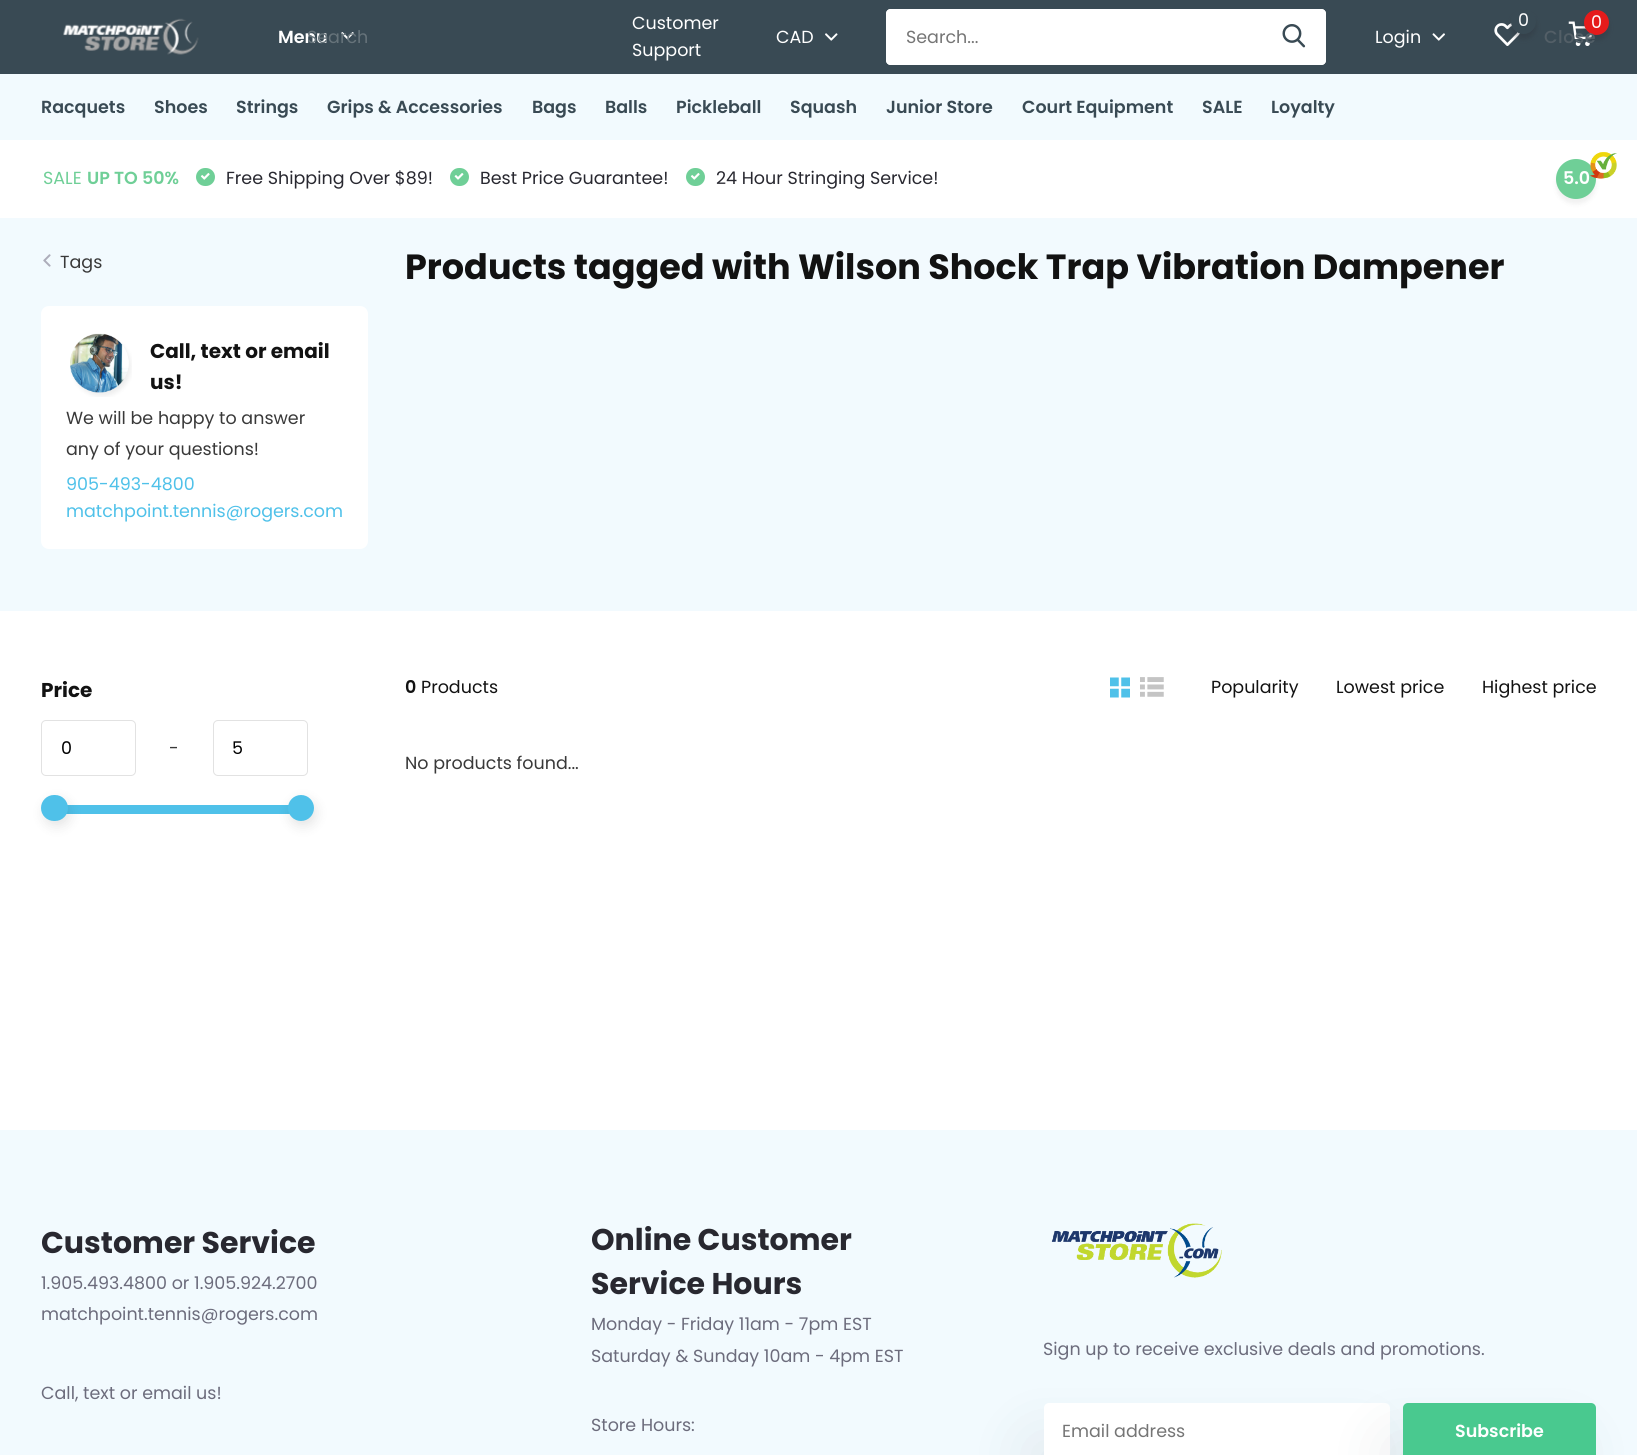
import math
import cairo


def use_color(cr, r, g, b):
  cr.set_source_rgb(r / 255, g / 255, b / 255)

def text(cr, x, y, s, family, size, color, bold=False, italic=False):
  cr.select_font_face(family, cairo.FONT_SLANT_ITALIC if italic else cairo.FONT_SLANT_NORMAL, cairo.FONT_WEIGHT_BOLD if bold else cairo.FONT_WEIGHT_NORMAL)
  cr.set_font_size(size)
  use_color(cr, *color)
  cr.move_to(x, y)
  cr.show_text(s)

def spaced_text(cr, x, y, s, letter, word):
  cr.move_to(x, y)
  for ch in s:
    cr.show_text(ch)
    cr.rel_move_to(letter + word * (ch == ' '), 0)

def box(cr, x, y, w, h, *color):
  use_color(cr, *color)
  cr.rectangle(x, y, w, h)
  cr.fill()

def round_rect(cr, x, y, w, h, r):
  cr.new_sub_path()
  for i, (u, v) in enumerate([(x + w - r, y + h - r), (x + r, y + h - r), (x + r, y + r), (x + w - r, y + r)]):
    cr.arc(u, v, r, i * math.pi / 2, (i + 1) * math.pi / 2)
  cr.close_path()

def shadow(cr, x, y, w, h, r, blur, alpha):
  cr.push_group_with_content(cairo.CONTENT_ALPHA)
  cr.set_operator(cairo.OPERATOR_SOURCE)
  for i in range(15, -16, -2):
    e = blur * i / 6
    if min(w, h) + 2 * e > 0:
      cr.set_source_rgba(0, 0, 0, alpha * math.erfc((i - 1) / 8.5) / 2)
      round_rect(cr, x - e, y - e, w + 2 * e, h + 2 * e, max(0, min(r + e + blur * .6, min(w, h) / 2 + e)))
      cr.fill()
  cr.mask(cr.pop_group())

def picture(cr, path, x, y, w, h):
  cr.save()
  cr.set_source_surface(cairo.ImageSurface.create_from_png(path), x, y)
  cr.rectangle(x, y, w, h)
  cr.fill()
  cr.restore()

def draw(cr):
  use_color(cr, 255, 255, 255)
  cr.paint()
  box(cr, 0, 0, 1637, 74, 57, 74, 84)
  picture(cr, "img_01.png", 63, 18, 136, 37)
  picture(cr, "img_02.png", 341, 32, 13, 8)
  picture(cr, "img_03.png", 825, 33, 13, 8)
  use_color(cr, 255, 255, 255)
  cr.new_path()
  cr.move_to(891, 9)
  cr.line_to(1264, 9)
  cr.line_to(1264, 65)
  cr.line_to(891, 65)
  cr.curve_to(888, 65, 886, 63, 886, 60)
  cr.line_to(886, 14)
  cr.curve_to(886, 11, 888, 9, 891, 9)
  cr.close_path()
  cr.fill()
  cr.set_fill_rule(cairo.FILL_RULE_EVEN_ODD)
  cr.new_path()
  cr.move_to(891, 9)
  cr.line_to(1264, 9)
  cr.line_to(1264, 65)
  cr.line_to(891, 65)
  cr.curve_to(888, 65, 886, 63, 886, 60)
  cr.line_to(886, 14)
  cr.curve_to(886, 11, 888, 9, 891, 9)
  cr.close_path()
  cr.move_to(891, 10)
  cr.line_to(1264, 10)
  cr.line_to(1264, 64)
  cr.line_to(891, 64)
  cr.curve_to(889, 64, 888, 62, 888, 60)
  cr.line_to(888, 14)
  cr.curve_to(888, 12, 889, 10, 891, 10)
  cr.close_path()
  cr.fill()
  cr.new_path()
  cr.move_to(1264, 9)
  cr.line_to(1321, 9)
  cr.curve_to(1324, 9, 1326, 11, 1326, 14)
  cr.line_to(1326, 60)
  cr.curve_to(1326, 63, 1324, 65, 1321, 65)
  cr.line_to(1264, 65)
  cr.close_path()
  cr.fill()
  cr.new_path()
  cr.move_to(1264, 9)
  cr.line_to(1321, 9)
  cr.curve_to(1324, 9, 1326, 11, 1326, 14)
  cr.line_to(1326, 60)
  cr.curve_to(1326, 63, 1324, 65, 1321, 65)
  cr.line_to(1264, 65)
  cr.close_path()
  cr.move_to(1264, 10)
  cr.line_to(1321, 10)
  cr.curve_to(1323, 10, 1325, 12, 1325, 14)
  cr.line_to(1325, 60)
  cr.curve_to(1325, 62, 1323, 64, 1321, 64)
  cr.line_to(1264, 64)
  cr.close_path()
  cr.fill()
  picture(cr, "img_04.png", 1282, 24, 24, 24)
  picture(cr, "img_05.png", 1432, 33, 13, 8)
  picture(cr, "img_06.png", 1494, 23, 26, 23)
  use_color(cr, 40, 40, 48)
  shadow(cr, 1511, 14, 25, 25, 12.5, 2.5, 0.25)
  use_color(cr, 57, 74, 84)
  cr.arc(1523.5, 21.5, 12.5, 0, 2 * math.pi)
  cr.fill()
  picture(cr, "img_07.png", 1568, 21, 25, 25)
  use_color(cr, 40, 40, 48)
  shadow(cr, 1584, 15, 25, 25, 12.5, 2.5, 0.25)
  use_color(cr, 230, 27, 27)
  cr.arc(1596.5, 22.5, 12.5, 0, 2 * math.pi)
  cr.fill()
  box(cr, 0, 74, 1637, 66, 242, 250, 254)
  use_color(cr, 111, 207, 151)
  round_rect(cr, 196, 168, 19, 18, 9)
  cr.fill()
  picture(cr, "img_08.png", 200, 173, 10, 7)
  round_rect(cr, 450, 168, 19, 18, 9)
  cr.fill()
  picture(cr, "img_09.png", 454, 173, 10, 7)
  round_rect(cr, 686, 168, 19, 18, 9)
  cr.fill()
  picture(cr, "img_08.png", 690, 173, 10, 7)
  use_color(cr, 0, 0, 0)
  shadow(cr, 1556, 164, 40, 40, 20, 2.5, 0.06)
  use_color(cr, 111, 207, 151)
  cr.arc(1576, 179, 20, 0, 2 * math.pi)
  cr.fill()
  picture(cr, "img_10.png", 1590, 152, 27, 27)
  box(cr, 0, 218, 1637, 393, 242, 250, 254)
  picture(cr, "img_11.png", 43, 254, 8, 13)
  use_color(cr, 255, 255, 255)
  round_rect(cr, 41, 306, 327, 243, 8)
  cr.fill()
  picture(cr, "img_12.png", 70, 333, 62, 64)
  round_rect(cr, 41.5, 720.5, 94, 55, 4.5)
  use_color(cr, 226, 226, 226)
  cr.set_line_width(1)
  cr.stroke()
  round_rect(cr, 213.5, 720.5, 94, 55, 4.5)
  cr.stroke()
  box(cr, 66, 805, 224, 9, 79, 193, 233)
  use_color(cr, 0, 0, 0)
  shadow(cr, 44, 800, 26, 26, 13, 6, 0.1)
  use_color(cr, 79, 193, 233)
  round_rect(cr, 41, 795, 27, 26, 13)
  cr.fill()
  use_color(cr, 0, 0, 0)
  shadow(cr, 290, 800, 26, 26, 13, 6, 0.1)
  use_color(cr, 79, 193, 233)
  cr.arc(301, 808, 13, 0, 2 * math.pi)
  cr.fill()
  picture(cr, "img_13.png", 1110, 677, 20, 21)
  picture(cr, "img_14.png", 1140, 677, 24, 20)
  box(cr, 0, 1130, 1637, 325, 242, 250, 254)
  picture(cr, "img_15.png", 1051, 1223, 171, 55)
  use_color(cr, 40, 56, 74)
  shadow(cr, 1025, 1434, 346, 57, 5, 31, 0.08)
  use_color(cr, 255, 255, 255)
  round_rect(cr, 1044, 1403, 346, 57, 5)
  cr.fill()
  use_color(cr, 40, 56, 74)
  shadow(cr, 1384, 1434, 194, 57, 5, 31, 0.08)
  use_color(cr, 73, 201, 143)
  round_rect(cr, 1403, 1403, 193, 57, 5)
  cr.fill()
  text(cr, 278, 43, "Menu", "Poppins SemiBold", 17.5, (255, 255, 255))
  text(cr, 632, 29, "Customer", "Poppins", 17.5, (255, 255, 255))
  text(cr, 632, 56, "Support", "Poppins", 17.5, (255, 255, 255))
  text(cr, 776, 43, "CAD", "Poppins", 17.5, (255, 255, 255))
  text(cr, 906, 43, "Search...", "Poppins", 17.5, (117, 117, 117))
  text(cr, 1375, 43, "Login", "Poppins", 17.5, (255, 255, 255))
  text(cr, 1518, 26, "0", "Poppins", 17.5, (255, 255, 255))
  text(cr, 1591, 28, "0", "Poppins", 17.5, (255, 255, 255))
  text(cr, 307, 43, "Search", "Poppins", 17.5, (102, 115, 122))
  cr.select_font_face("Poppins Medium")
  use_color(cr, 83, 95, 103)
  spaced_text(cr, 1544, 43, "Close", 0.5, 0)
  text(cr, 41, 113, "Racquets", "Poppins SemiBold", 17.5, (57, 74, 84))
  text(cr, 154, 113, "Shoes", "Poppins SemiBold", 17.5, (57, 74, 84))
  text(cr, 236, 113, "Strings", "Poppins SemiBold", 17.5, (57, 74, 84))
  text(cr, 327, 113, "Grips & Accessories", "Poppins SemiBold", 17.5, (57, 74, 84))
  text(cr, 532, 113, "Bags", "Poppins SemiBold", 17.5, (57, 74, 84))
  text(cr, 605, 113, "Balls", "Poppins SemiBold", 17.5, (57, 74, 84))
  text(cr, 676, 113, "Pickleball", "Poppins SemiBold", 17.5, (57, 74, 84))
  text(cr, 790, 113, "Squash", "Poppins SemiBold", 17.5, (57, 74, 84))
  text(cr, 886, 113, "Junior Store", "Poppins SemiBold", 17.5, (57, 74, 84))
  text(cr, 1022, 113, "Court Equipment", "Poppins SemiBold", 17.5, (57, 74, 84))
  text(cr, 1202, 113, "SALE", "Poppins SemiBold", 17.5, (57, 74, 84))
  text(cr, 1271, 113, "Loyalty", "Poppins SemiBold", 17.5, (57, 74, 84))
  text(cr, 43, 184, "SALE", "Poppins", 17.5, (111, 207, 151))
  text(cr, 87, 184, "UP TO 50%", "Poppins SemiBold", 17.5, (111, 207, 151))
  text(cr, 226, 184, "Free Shipping Over $89!", "Poppins", 17.5, (40, 40, 48))
  text(cr, 480, 184, "Best Price Guarantee!", "Poppins", 17.5, (40, 40, 48))
  text(cr, 716, 184, "24 Hour Stringing Service!", "Poppins", 17.5, (40, 40, 48))
  text(cr, 1563, 184, "5.0", "Poppins SemiBold", 17.5, (255, 255, 255))
  text(cr, 60, 268, "Tags", "Poppins", 17.5, (57, 57, 57))
  text(cr, 150, 358, "Call, text or email", "Poppins", 20, (18, 18, 18), bold=True)
  text(cr, 150, 389, "us!", "Poppins", 20, (18, 18, 18), bold=True)
  text(cr, 66, 424, "We will be happy to answer", "Poppins", 17.5, (57, 57, 57))
  text(cr, 66, 455, "any of your questions!", "Poppins", 17.5, (57, 57, 57))
  text(cr, 66, 490, "905-493-4800", "Poppins", 17.5, (79, 193, 233))
  text(cr, 66, 517, "matchpoint.tennis@rogers.com", "Poppins", 17.5, (79, 193, 233))
  text(cr, 405, 279, "Products tagged with Wilson Shock Trap Vibration Dampener", "Poppins", 35, (18, 18, 18), bold=True)
  text(cr, 41, 697, "Price", "Poppins", 20, (18, 18, 18), bold=True)
  text(cr, 61, 754, "0", "Poppins", 17.5, (0, 0, 0))
  text(cr, 169, 754, "-", "Poppins", 17.5, (57, 57, 57))
  text(cr, 232, 754, "5", "Poppins", 17.5, (0, 0, 0))
  text(cr, 405, 693, "0", "Poppins SemiBold", 17.5, (18, 18, 18))
  text(cr, 421, 693, "Products", "Poppins", 17.5, (18, 18, 18))
  text(cr, 1211, 693, "Popularity", "Poppins", 17.5, (18, 18, 18))
  text(cr, 1336, 693, "Lowest price", "Poppins", 17.5, (18, 18, 18))
  text(cr, 1482, 693, "Highest price", "Poppins", 17.5, (18, 18, 18))
  text(cr, 405, 769, "No products found...", "Poppins", 17.5, (57, 57, 57))
  text(cr, 41, 1253, "Customer Service", "Poppins", 30, (40, 40, 48), bold=True)
  text(cr, 41, 1289, "1.905.493.4800 or 1.905.924.2700", "Poppins", 17.5, (108, 108, 124))
  text(cr, 41, 1320, "matchpoint.tennis@rogers.com", "Poppins", 17.5, (108, 108, 124))
  text(cr, 41, 1399, "Call, text or email us!", "Poppins", 17.5, (108, 108, 124))
  text(cr, 591, 1250, "Online Customer", "Poppins", 30, (40, 40, 48), bold=True)
  text(cr, 591, 1294, "Service Hours", "Poppins", 30, (40, 40, 48), bold=True)
  text(cr, 591, 1330, "Monday - Friday 11am - 7pm EST", "Poppins", 17.5, (108, 108, 124))
  text(cr, 591, 1362, "Saturday & Sunday 10am - 4pm EST", "Poppins", 17.5, (108, 108, 124))
  text(cr, 591, 1431, "Store Hours:", "Poppins", 17.5, (108, 108, 124))
  text(cr, 1043, 1355, "Sign up to receive exclusive deals and promotions.", "Poppins", 17.5, (108, 108, 124))
  text(cr, 1062, 1437, "Email address", "Poppins", 17.5, (117, 117, 117))
  text(cr, 1455, 1437, "Subscribe", "Poppins SemiBold", 17.5, (255, 255, 255))


surface = cairo.ImageSurface(cairo.FORMAT_RGB24, 1637, 1455)
cr = cairo.Context(surface)
options = cairo.FontOptions()
options.set_hint_metrics(cairo.HINT_METRICS_OFF)
options.set_hint_style(cairo.HINT_STYLE_NONE)
cr.set_font_options(options)
cr.set_miter_limit(4)
draw(cr)
surface.write_to_png("out.png")
